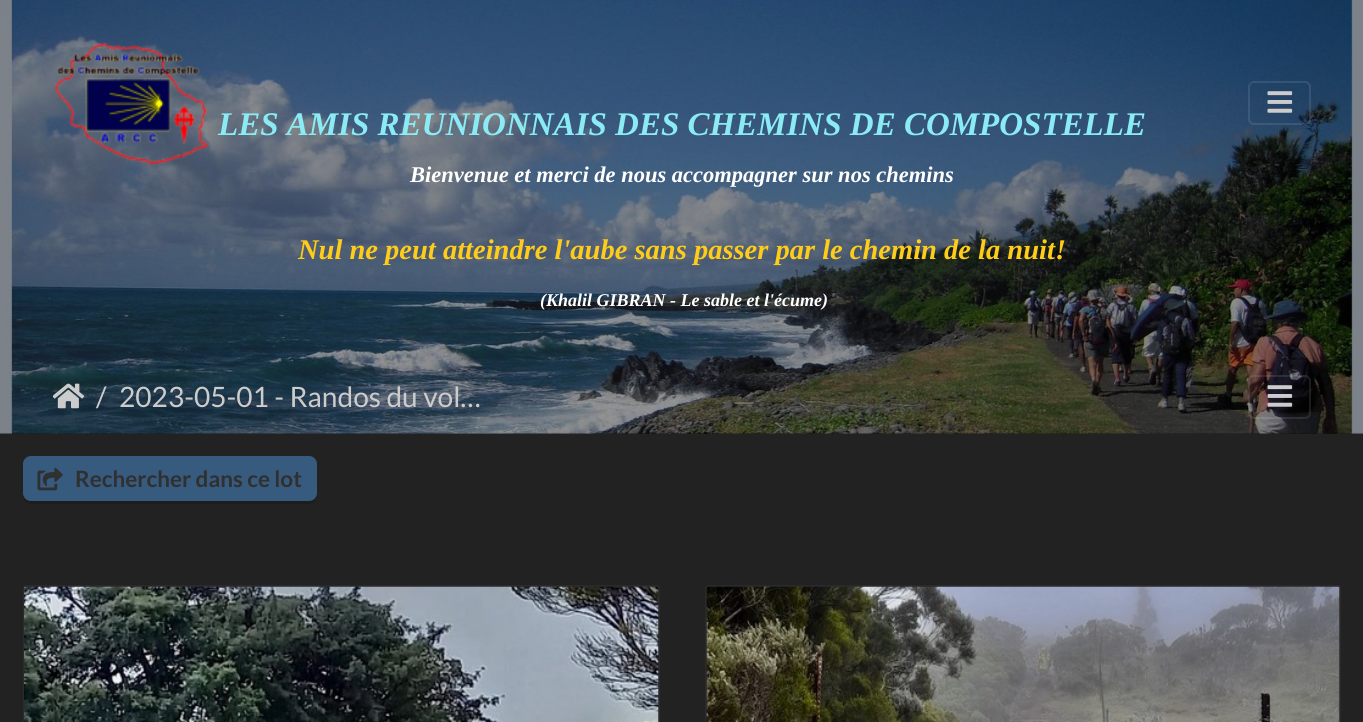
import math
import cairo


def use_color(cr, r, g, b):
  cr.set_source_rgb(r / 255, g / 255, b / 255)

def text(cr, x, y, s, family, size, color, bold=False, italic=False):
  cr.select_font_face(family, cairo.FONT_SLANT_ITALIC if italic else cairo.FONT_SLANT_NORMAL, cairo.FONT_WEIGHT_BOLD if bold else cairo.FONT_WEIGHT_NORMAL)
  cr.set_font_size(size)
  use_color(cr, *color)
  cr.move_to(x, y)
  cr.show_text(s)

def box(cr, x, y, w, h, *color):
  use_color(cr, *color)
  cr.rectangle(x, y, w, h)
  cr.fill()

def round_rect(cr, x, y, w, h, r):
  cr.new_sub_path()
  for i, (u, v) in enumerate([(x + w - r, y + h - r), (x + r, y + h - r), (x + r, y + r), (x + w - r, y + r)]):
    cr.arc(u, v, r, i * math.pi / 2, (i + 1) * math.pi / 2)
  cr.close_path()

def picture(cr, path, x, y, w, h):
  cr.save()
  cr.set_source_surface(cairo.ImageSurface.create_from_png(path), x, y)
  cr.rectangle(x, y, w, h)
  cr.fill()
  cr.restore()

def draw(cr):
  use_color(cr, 34, 34, 34)
  cr.paint()
  box(cr, 0, 432, 1363, 2, 20, 20, 20)
  picture(cr, "img_03.png", 0, 0, 1363, 434)
  picture(cr, "img_01.png", 55, 42, 154, 123)
  round_rect(cr, 1249, 82, 61, 42, 5)
  cr.set_source_rgba(1, 1, 1, 0.1)
  cr.stroke()
  picture(cr, "img_02.png", 1267, 91, 26, 22)
  picture(cr, "img_04.png", 53, 383, 31, 26)
  round_rect(cr, 1249, 376, 61, 42, 5)
  cr.stroke()
  picture(cr, "img_05.png", 1267, 385, 26, 22)
  use_color(cr, 29, 29, 29)
  cr.new_path()
  cr.move_to(23, 496)
  cr.curve_to(23, 501, 27, 504, 31, 504)
  cr.line_to(309, 504)
  cr.curve_to(313, 504, 317, 500, 317, 496)
  cr.line_to(317, 467)
  cr.line_to(316, 464)
  cr.line_to(316, 494)
  cr.curve_to(316, 498, 313, 501, 309, 501)
  cr.line_to(30, 501)
  cr.curve_to(27, 501, 24, 499, 23, 496)
  cr.close_path()
  cr.fill()
  use_color(cr, 55, 90, 127)
  round_rect(cr, 23, 456, 294, 45, 8)
  cr.fill()
  picture(cr, "img_06.png", 37, 467, 26, 24)
  use_color(cr, 48, 48, 48)
  round_rect(cr, 23, 585, 637, 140, 3)
  cr.fill()
  round_rect(cr, 24, 586, 635, 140, 2)
  cr.set_source_rgba(0, 0, 0, 0.12)
  cr.stroke()
  picture(cr, "img_07.png", 24, 586, 635, 136)
  use_color(cr, 48, 48, 48)
  round_rect(cr, 705, 585, 636, 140, 3)
  cr.fill()
  round_rect(cr, 706, 586, 634, 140, 2)
  cr.set_source_rgba(0, 0, 0, 0.12)
  cr.stroke()
  picture(cr, "img_08.png", 706, 586, 634, 136)
  text(cr, 218, 135, "LES AMIS REUNIONNAIS DES CHEMINS DE COMPOSTELLE", "Liberation Serif", 33, (138, 235, 244), bold=True, italic=True)
  text(cr, 410, 182, "Bienvenue et merci de nous accompagner sur nos chemins", "Liberation Serif", 22.5, (255, 255, 255), bold=True, italic=True)
  text(cr, 298, 259, "Nul ne peut atteindre l'aube sans passer par le chemin de la nuit!", "Liberation Serif", 28.5, (254, 204, 25), bold=True, italic=True)
  text(cr, 540, 306, "(Khalil GIBRAN - Le sable et l'écume)", "Liberation Serif", 18, (255, 255, 255), bold=True, italic=True)
  text(cr, 96, 407, "/", "Lato", 28.1, (204, 204, 204))
  text(cr, 119, 407, "2023-05-01 - Randos du vol…", "Lato", 28.1, (204, 204, 204))
  text(cr, 75, 487, "Rechercher dans ce lot", "Lato", 22.5, (48, 48, 48), bold=True)


surface = cairo.ImageSurface(cairo.FORMAT_RGB24, 1363, 722)
cr = cairo.Context(surface)
options = cairo.FontOptions()
options.set_hint_metrics(cairo.HINT_METRICS_OFF)
options.set_hint_style(cairo.HINT_STYLE_NONE)
cr.set_font_options(options)
cr.set_miter_limit(4)
draw(cr)
surface.write_to_png("out.png")
